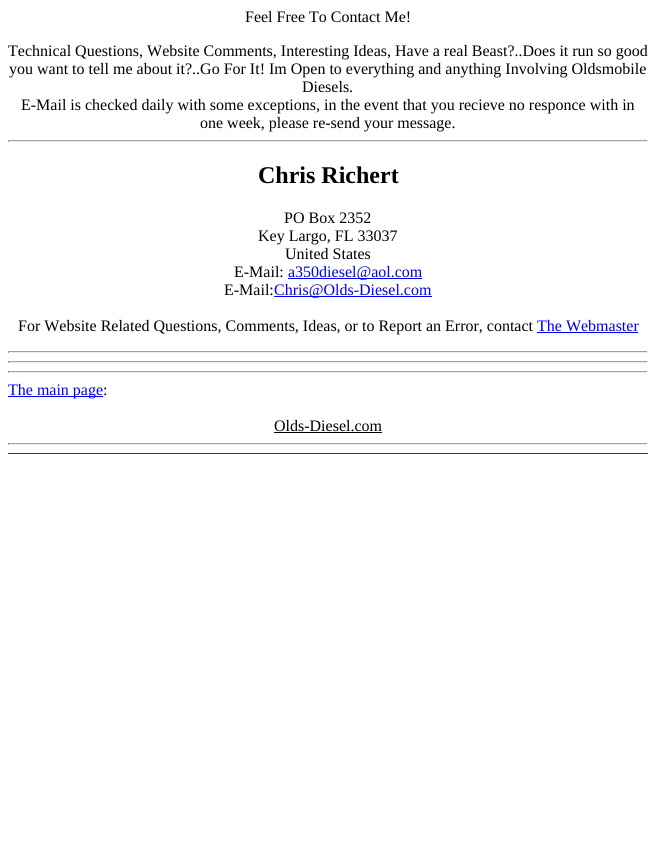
import math
import cairo


def use_color(cr, r, g, b):
  cr.set_source_rgb(r / 255, g / 255, b / 255)

def text(cr, x, y, s, family, size, color, bold=False, italic=False):
  cr.select_font_face(family, cairo.FONT_SLANT_ITALIC if italic else cairo.FONT_SLANT_NORMAL, cairo.FONT_WEIGHT_BOLD if bold else cairo.FONT_WEIGHT_NORMAL)
  cr.set_font_size(size)
  use_color(cr, *color)
  cr.move_to(x, y)
  cr.show_text(s)

def box(cr, x, y, w, h, *color):
  use_color(cr, *color)
  cr.rectangle(x, y, w, h)
  cr.fill()

def draw(cr):
  use_color(cr, 255, 255, 255)
  cr.paint()
  box(cr, 8, 140, 640, 1, 159, 159, 159)
  box(cr, 647, 140, 1, 2, 238, 238, 238)
  box(cr, 8, 141, 640, 1, 238, 238, 238)
  box(cr, 8, 140, 1, 2, 159, 159, 159)
  box(cr, 288, 278, 134, 1, 0, 0, 238)
  box(cr, 274, 296, 158, 1, 0, 0, 238)
  box(cr, 537, 332, 101, 1, 0, 0, 238)
  box(cr, 8, 351, 640, 1, 159, 159, 159)
  box(cr, 647, 351, 1, 2, 238, 238, 238)
  box(cr, 8, 352, 640, 1, 238, 238, 238)
  box(cr, 8, 351, 1, 2, 159, 159, 159)
  box(cr, 8, 361, 640, 1, 159, 159, 159)
  box(cr, 647, 361, 1, 2, 238, 238, 238)
  box(cr, 8, 362, 640, 1, 238, 238, 238)
  box(cr, 8, 361, 1, 2, 159, 159, 159)
  box(cr, 8, 371, 640, 1, 159, 159, 159)
  box(cr, 647, 371, 1, 2, 238, 238, 238)
  box(cr, 8, 372, 640, 1, 238, 238, 238)
  box(cr, 8, 371, 1, 2, 159, 159, 159)
  box(cr, 8, 396, 95, 1, 0, 0, 238)
  box(cr, 274, 432, 108, 1, 0, 0, 0)
  box(cr, 8, 443, 640, 1, 159, 159, 159)
  box(cr, 647, 443, 1, 2, 238, 238, 238)
  box(cr, 8, 444, 640, 1, 238, 238, 238)
  box(cr, 8, 443, 1, 2, 159, 159, 159)
  box(cr, 8, 453, 640, 1, 57, 57, 57)
  text(cr, 245, 22, "Feel Free To Contact Me!", "Liberation Serif", 16, (0, 0, 0))
  text(cr, 8, 56, "Technical Questions, Website Comments, Interesting Ideas, Have a real Beast?..Does it run so good", "Liberation Serif", 16, (0, 0, 0))
  text(cr, 9, 74, "you want to tell me about it?..Go For It! Im Open to everything and anything Involving Oldsmobile", "Liberation Serif", 16, (0, 0, 0))
  text(cr, 302, 92, "Diesels.", "Liberation Serif", 16, (0, 0, 0))
  text(cr, 21, 110, "E-Mail is checked daily with some exceptions, in the event that you recieve no responce with in", "Liberation Serif", 16, (0, 0, 0))
  text(cr, 200, 128, "one week, please re-send your message.", "Liberation Serif", 16, (0, 0, 0))
  text(cr, 258, 183, "Chris Richert", "Liberation Serif", 24, (0, 0, 0), bold=True)
  text(cr, 284, 223, "PO Box 2352", "Liberation Serif", 16, (0, 0, 0))
  text(cr, 258, 241, "Key Largo, FL 33037", "Liberation Serif", 16, (0, 0, 0))
  text(cr, 285, 259, "United States", "Liberation Serif", 16, (0, 0, 0))
  text(cr, 234, 277, "E-Mail:", "Liberation Serif", 16, (0, 0, 0))
  text(cr, 288, 277, "a350diesel@aol.com", "Liberation Serif", 16, (0, 0, 238))
  text(cr, 224, 295, "E-Mail:", "Liberation Serif", 16, (0, 0, 0))
  text(cr, 274, 295, "Chris@Olds-Diesel.com", "Liberation Serif", 16, (0, 0, 238))
  text(cr, 18, 331, "For Website Related Questions, Comments, Ideas, or to Report an Error, contact", "Liberation Serif", 16, (0, 0, 0))
  text(cr, 537, 331, "The Webmaster", "Liberation Serif", 16, (0, 0, 238))
  text(cr, 8, 395, "The main page", "Liberation Serif", 16, (0, 0, 238))
  text(cr, 103, 395, ":", "Liberation Serif", 16, (0, 0, 0))
  text(cr, 274, 431, "Olds-Diesel.com", "Liberation Serif", 16, (0, 0, 0))


surface = cairo.ImageSurface(cairo.FORMAT_RGB24, 656, 846)
cr = cairo.Context(surface)
options = cairo.FontOptions()
options.set_hint_metrics(cairo.HINT_METRICS_OFF)
options.set_hint_style(cairo.HINT_STYLE_NONE)
cr.set_font_options(options)
cr.set_miter_limit(4)
draw(cr)
surface.write_to_png("out.png")
